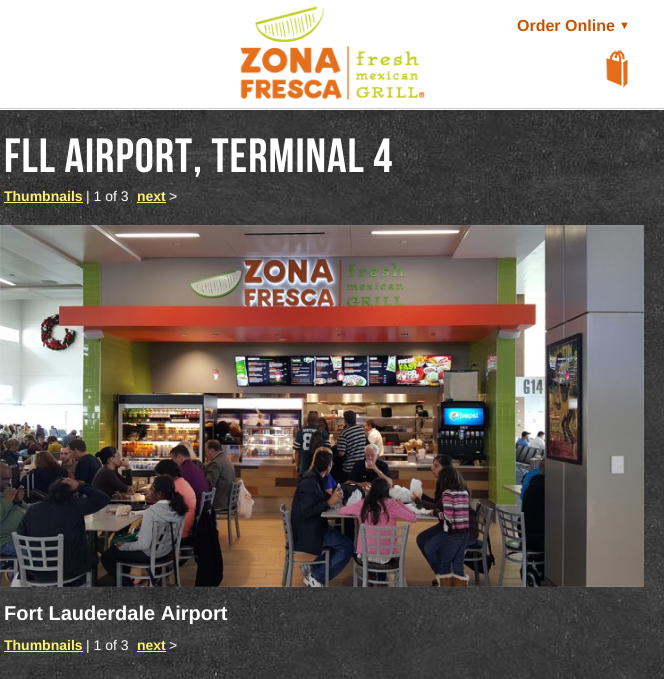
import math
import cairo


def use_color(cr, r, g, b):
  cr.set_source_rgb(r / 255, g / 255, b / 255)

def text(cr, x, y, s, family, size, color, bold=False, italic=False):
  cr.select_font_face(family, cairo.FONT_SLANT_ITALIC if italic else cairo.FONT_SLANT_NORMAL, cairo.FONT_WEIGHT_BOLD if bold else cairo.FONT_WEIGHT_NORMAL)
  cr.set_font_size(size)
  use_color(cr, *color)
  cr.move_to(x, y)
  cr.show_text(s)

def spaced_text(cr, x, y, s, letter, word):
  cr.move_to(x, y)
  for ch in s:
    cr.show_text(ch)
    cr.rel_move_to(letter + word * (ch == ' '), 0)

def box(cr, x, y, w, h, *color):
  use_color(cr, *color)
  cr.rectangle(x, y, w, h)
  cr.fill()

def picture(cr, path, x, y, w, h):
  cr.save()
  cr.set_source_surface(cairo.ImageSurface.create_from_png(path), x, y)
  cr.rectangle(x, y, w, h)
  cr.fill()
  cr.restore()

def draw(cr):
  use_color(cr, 255, 255, 255)
  cr.paint()
  box(cr, 0, 108, 664, 1, 204, 204, 204)
  picture(cr, "img_01.png", 240, 6, 185, 94)
  picture(cr, "img_02.png", 606, 50, 22, 38)
  picture(cr, "img_03.png", 0, 110, 664, 569)
  box(cr, 4, 202, 79, 1, 255, 243, 112)
  box(cr, 137, 202, 29, 1, 255, 243, 112)
  picture(cr, "img_04.png", 0, 225, 644, 362)
  box(cr, 4, 651, 79, 1, 255, 243, 112)
  box(cr, 137, 651, 29, 1, 255, 243, 112)
  text(cr, 517, 31, "Order Online", "Liberation Sans", 16, (199, 82, 0), bold=True)
  text(cr, 619, 29, "▼", "Liberation Sans", 11, (199, 82, 0), bold=True)
  cr.select_font_face("Bebas Neue", cairo.FONT_SLANT_NORMAL, cairo.FONT_WEIGHT_BOLD)
  cr.set_font_size(48)
  use_color(cr, 255, 255, 255)
  spaced_text(cr, 4, 172, "FLL AIRPORT, TERMINAL 4", 1, 0)
  text(cr, 4, 201, "Thumbnails", "Liberation Sans", 14, (255, 243, 112), bold=True)
  text(cr, 86, 201, "| 1 of 3", "Liberation Sans", 14, (255, 255, 255))
  text(cr, 137, 201, "next", "Liberation Sans", 14, (255, 243, 112), bold=True)
  text(cr, 169, 201, ">", "Liberation Sans", 14, (255, 255, 255))
  text(cr, 4, 620, "Fort Lauderdale Airport", "Liberation Sans", 20, (255, 255, 255), bold=True)
  text(cr, 4, 650, "Thumbnails", "Liberation Sans", 14, (255, 243, 112), bold=True)
  text(cr, 86, 650, "| 1 of 3", "Liberation Sans", 14, (255, 255, 255))
  text(cr, 137, 650, "next", "Liberation Sans", 14, (255, 243, 112), bold=True)
  text(cr, 169, 650, ">", "Liberation Sans", 14, (255, 255, 255))


surface = cairo.ImageSurface(cairo.FORMAT_RGB24, 664, 679)
cr = cairo.Context(surface)
options = cairo.FontOptions()
options.set_hint_metrics(cairo.HINT_METRICS_OFF)
options.set_hint_style(cairo.HINT_STYLE_NONE)
cr.set_font_options(options)
cr.set_miter_limit(4)
draw(cr)
surface.write_to_png("out.png")
